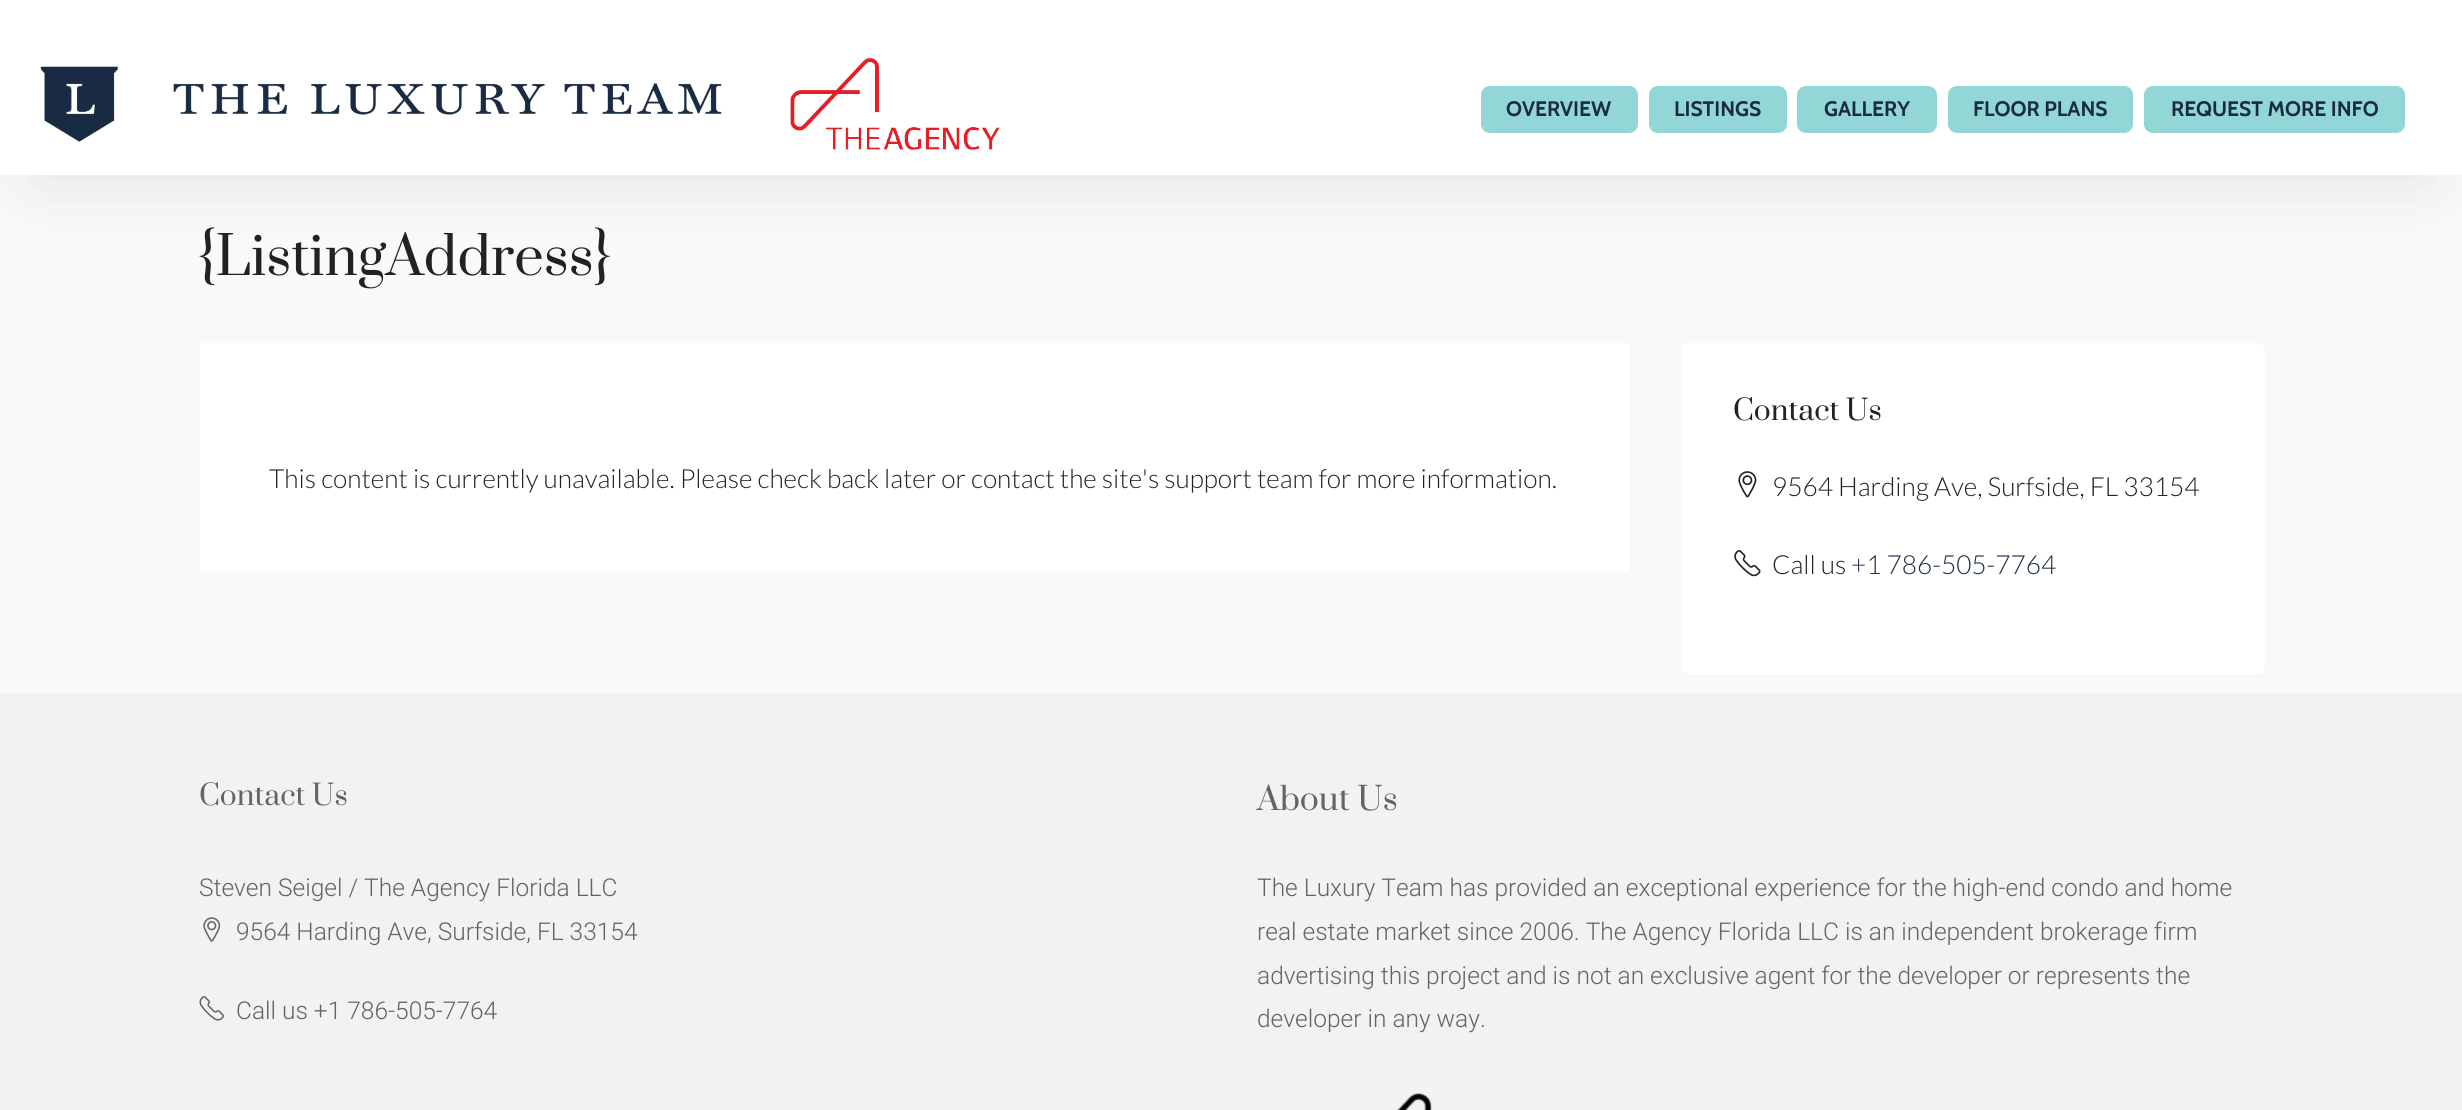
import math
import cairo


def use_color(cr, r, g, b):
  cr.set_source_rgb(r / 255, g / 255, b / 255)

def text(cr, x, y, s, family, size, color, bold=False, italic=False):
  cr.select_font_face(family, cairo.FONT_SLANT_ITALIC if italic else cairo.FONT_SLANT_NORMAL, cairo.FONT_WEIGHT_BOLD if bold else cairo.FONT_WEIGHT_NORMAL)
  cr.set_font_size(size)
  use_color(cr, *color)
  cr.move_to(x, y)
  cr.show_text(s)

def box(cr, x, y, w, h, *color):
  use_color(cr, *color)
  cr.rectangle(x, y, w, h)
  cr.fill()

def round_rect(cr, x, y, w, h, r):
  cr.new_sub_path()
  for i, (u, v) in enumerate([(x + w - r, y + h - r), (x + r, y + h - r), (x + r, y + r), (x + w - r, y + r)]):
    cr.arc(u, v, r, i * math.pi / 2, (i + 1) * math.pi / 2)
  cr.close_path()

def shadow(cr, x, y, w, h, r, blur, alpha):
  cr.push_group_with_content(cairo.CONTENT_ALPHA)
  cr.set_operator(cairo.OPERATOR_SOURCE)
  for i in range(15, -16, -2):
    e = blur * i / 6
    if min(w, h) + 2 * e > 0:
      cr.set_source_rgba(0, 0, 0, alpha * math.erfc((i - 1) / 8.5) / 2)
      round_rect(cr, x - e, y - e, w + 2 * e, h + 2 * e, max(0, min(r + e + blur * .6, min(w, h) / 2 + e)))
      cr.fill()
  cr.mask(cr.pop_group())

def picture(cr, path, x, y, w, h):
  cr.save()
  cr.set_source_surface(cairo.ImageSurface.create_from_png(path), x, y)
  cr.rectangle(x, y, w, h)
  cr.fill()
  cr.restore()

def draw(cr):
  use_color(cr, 249, 249, 249)
  cr.paint()
  use_color(cr, 0, 0, 0)
  shadow(cr, 35, 70, 2392, 105, 0, 35, 0.1)
  box(cr, 0, 0, 2462, 175, 255, 255, 255)
  picture(cr, "img_01.png", 40, 57, 960, 93)
  use_color(cr, 146, 214, 213)
  round_rect(cr, 1481, 86, 157, 47, 9)
  cr.fill()
  round_rect(cr, 1649, 86, 138, 47, 9)
  cr.fill()
  round_rect(cr, 1797, 86, 140, 47, 9)
  cr.fill()
  round_rect(cr, 1948, 86, 185, 47, 9)
  cr.fill()
  round_rect(cr, 2144, 86, 261, 47, 9)
  cr.fill()
  box(cr, 200, 343, 1429, 228, 255, 255, 255)
  round_rect(cr, 1682, 343, 583, 331, 7)
  cr.fill()
  picture(cr, "img_02.png", 1738, 471, 19, 27)
  picture(cr, "img_03.png", 1734, 550, 27, 27)
  box(cr, 0, 693, 2462, 417, 242, 242, 242)
  picture(cr, "img_04.png", 203, 917, 18, 25)
  picture(cr, "img_05.png", 199, 996, 25, 25)
  picture(cr, "img_06.png", 1397, 1093, 35, 17)
  text(cr, 1506, 116, "OVERVIEW", "Cabin", 21, (25, 43, 67), bold=True)
  text(cr, 1674, 116, "LISTINGS", "Cabin", 21, (25, 43, 67), bold=True)
  text(cr, 1824, 116, "GALLERY", "Cabin", 21, (25, 43, 67), bold=True)
  text(cr, 1973, 116, "FLOOR PLANS", "Cabin", 21, (25, 43, 67), bold=True)
  text(cr, 2171, 116, "REQUEST MORE INFO", "Cabin", 21, (25, 43, 67), bold=True)
  text(cr, 199, 275, "{ListingAddress}", "Prata", 52.5, (34, 34, 34))
  text(cr, 269, 488, "This content is currently unavailable. Please check back later or contact the site's support team for more information.", "Lato Light", 26.25, (34, 34, 34))
  text(cr, 1733, 420, "Contact Us", "Prata", 28, (34, 34, 34))
  text(cr, 1772, 496, "9564 Harding Ave, Surfside, FL 33154", "Lato Light", 26.25, (34, 34, 34))
  text(cr, 1772, 574, "Call us", "Lato Light", 26.25, (34, 34, 34))
  text(cr, 1851, 574, "+1 786-505-7764", "Lato Light", 26.25, (25, 43, 67))
  text(cr, 199, 805, "Contact Us", "Prata", 28, (99, 99, 107))
  text(cr, 199, 896, "Steven Seigel / The Agency Florida LLC", "Roboto Light", 24.5, (99, 99, 107))
  text(cr, 236, 940, "9564 Harding Ave, Surfside, FL 33154", "Roboto Light", 24.5, (99, 99, 107))
  text(cr, 236, 1019, "Call us +1 786-505-7764", "Roboto Light", 24.5, (99, 99, 107))
  text(cr, 1257, 810, "About Us", "Prata", 31.5, (99, 99, 107))
  text(cr, 1257, 896, "The Luxury Team has provided an exceptional experience for the high-end condo and home", "Roboto Light", 24.5, (99, 99, 107))
  text(cr, 1257, 940, "real estate market since 2006. The Agency Florida LLC is an independent brokerage firm", "Roboto Light", 24.5, (99, 99, 107))
  text(cr, 1257, 984, "advertising this project and is not an exclusive agent for the developer or represents the", "Roboto Light", 24.5, (99, 99, 107))
  text(cr, 1257, 1027, "developer in any way.", "Roboto Light", 24.5, (99, 99, 107))


surface = cairo.ImageSurface(cairo.FORMAT_RGB24, 2462, 1110)
cr = cairo.Context(surface)
options = cairo.FontOptions()
options.set_hint_metrics(cairo.HINT_METRICS_OFF)
options.set_hint_style(cairo.HINT_STYLE_NONE)
cr.set_font_options(options)
cr.set_miter_limit(4)
draw(cr)
surface.write_to_png("out.png")
